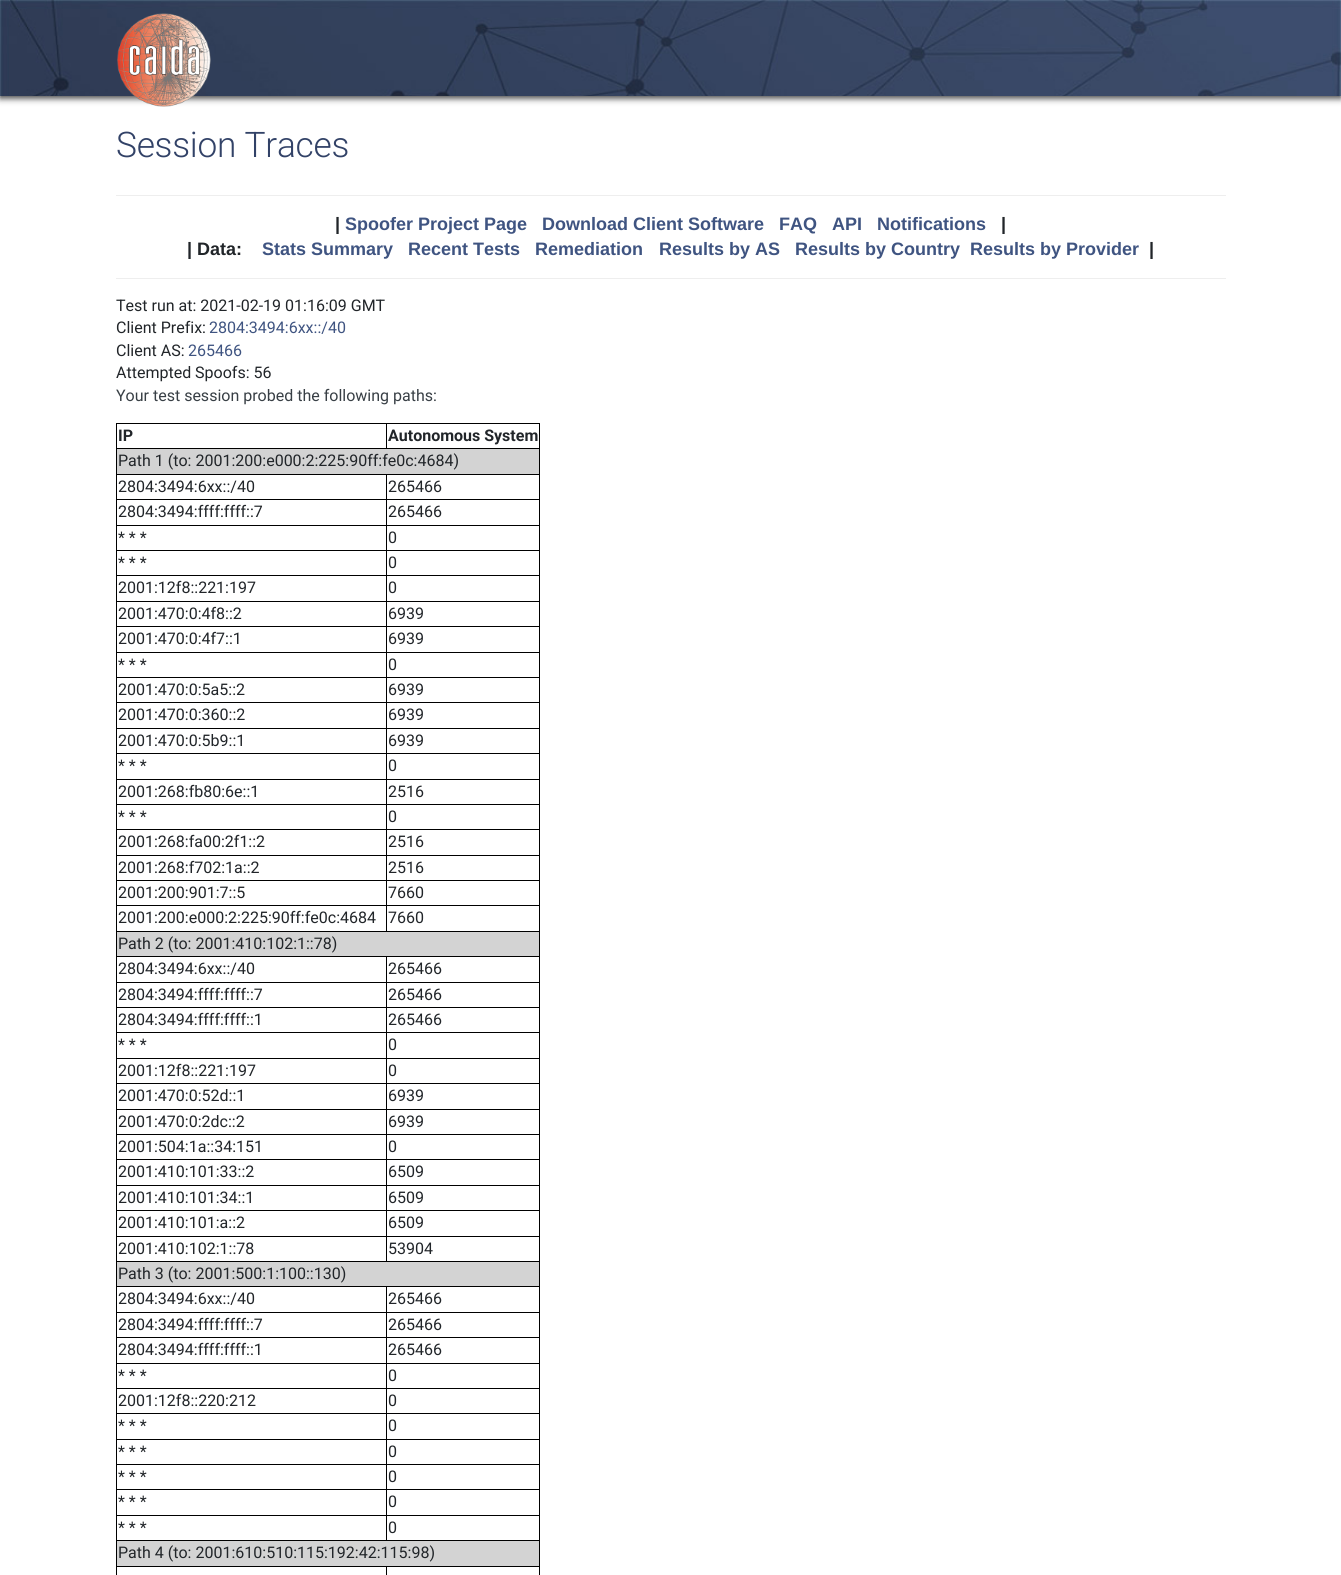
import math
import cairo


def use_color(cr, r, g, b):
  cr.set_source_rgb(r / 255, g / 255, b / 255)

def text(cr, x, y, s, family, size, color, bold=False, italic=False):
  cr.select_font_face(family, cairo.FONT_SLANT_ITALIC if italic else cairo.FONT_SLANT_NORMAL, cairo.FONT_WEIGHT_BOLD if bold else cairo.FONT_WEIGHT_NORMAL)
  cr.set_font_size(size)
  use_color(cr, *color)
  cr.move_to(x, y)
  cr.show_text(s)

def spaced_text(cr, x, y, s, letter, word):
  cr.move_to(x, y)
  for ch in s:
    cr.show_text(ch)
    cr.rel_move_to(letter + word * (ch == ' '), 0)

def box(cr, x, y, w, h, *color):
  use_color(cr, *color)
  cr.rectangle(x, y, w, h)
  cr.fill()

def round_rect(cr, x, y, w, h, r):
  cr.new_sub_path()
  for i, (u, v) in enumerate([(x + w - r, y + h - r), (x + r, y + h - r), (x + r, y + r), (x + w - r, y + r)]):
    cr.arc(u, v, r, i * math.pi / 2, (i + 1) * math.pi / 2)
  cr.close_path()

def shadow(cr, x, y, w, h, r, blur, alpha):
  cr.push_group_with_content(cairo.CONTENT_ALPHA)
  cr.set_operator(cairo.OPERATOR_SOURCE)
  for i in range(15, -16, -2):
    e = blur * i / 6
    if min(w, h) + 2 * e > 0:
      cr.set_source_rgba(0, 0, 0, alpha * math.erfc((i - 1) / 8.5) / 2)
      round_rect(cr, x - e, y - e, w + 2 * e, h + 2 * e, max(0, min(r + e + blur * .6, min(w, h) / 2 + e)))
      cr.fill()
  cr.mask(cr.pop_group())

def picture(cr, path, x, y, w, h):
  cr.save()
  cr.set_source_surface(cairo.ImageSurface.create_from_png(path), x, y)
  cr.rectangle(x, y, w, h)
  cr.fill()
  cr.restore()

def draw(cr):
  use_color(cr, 255, 255, 255)
  cr.paint()
  use_color(cr, 51, 51, 51)
  shadow(cr, 0, 2, 1341, 96, 0, 3.5, 1)
  picture(cr, "img_01.png", 0, 0, 1341, 96)
  picture(cr, "img_02.png", 117, 13, 94, 94)
  box(cr, 116, 195, 1110, 1, 238, 238, 238)
  box(cr, 116, 278, 1110, 1, 238, 238, 238)
  box(cr, 116, 423, 424, 1, 0, 0, 0)
  box(cr, 539, 423, 1, 1152, 0, 0, 0)
  box(cr, 116, 423, 1, 1152, 0, 0, 0)
  box(cr, 116, 448, 424, 1, 0, 0, 0)
  box(cr, 386, 423, 1, 26, 0, 0, 0)
  box(cr, 117, 449, 422, 25, 211, 211, 211)
  box(cr, 386, 474, 154, 1, 0, 0, 0)
  box(cr, 386, 499, 154, 1, 0, 0, 0)
  box(cr, 386, 525, 154, 1, 0, 0, 0)
  box(cr, 386, 550, 154, 1, 0, 0, 0)
  box(cr, 386, 575, 154, 1, 0, 0, 0)
  box(cr, 386, 601, 154, 1, 0, 0, 0)
  box(cr, 386, 626, 154, 1, 0, 0, 0)
  box(cr, 386, 652, 154, 1, 0, 0, 0)
  box(cr, 386, 677, 154, 1, 0, 0, 0)
  box(cr, 386, 702, 154, 1, 0, 0, 0)
  box(cr, 386, 728, 154, 1, 0, 0, 0)
  box(cr, 386, 753, 154, 1, 0, 0, 0)
  box(cr, 386, 779, 154, 1, 0, 0, 0)
  box(cr, 386, 804, 154, 1, 0, 0, 0)
  box(cr, 386, 829, 154, 1, 0, 0, 0)
  box(cr, 386, 855, 154, 1, 0, 0, 0)
  box(cr, 386, 880, 154, 1, 0, 0, 0)
  box(cr, 386, 905, 154, 1, 0, 0, 0)
  box(cr, 116, 931, 424, 1, 0, 0, 0)
  box(cr, 386, 905, 1, 27, 0, 0, 0)
  box(cr, 116, 905, 271, 1, 0, 0, 0)
  box(cr, 386, 880, 1, 26, 0, 0, 0)
  box(cr, 116, 880, 271, 1, 0, 0, 0)
  box(cr, 386, 855, 1, 26, 0, 0, 0)
  box(cr, 116, 855, 271, 1, 0, 0, 0)
  box(cr, 386, 829, 1, 27, 0, 0, 0)
  box(cr, 116, 829, 271, 1, 0, 0, 0)
  box(cr, 386, 804, 1, 26, 0, 0, 0)
  box(cr, 116, 804, 271, 1, 0, 0, 0)
  box(cr, 386, 779, 1, 26, 0, 0, 0)
  box(cr, 116, 779, 271, 1, 0, 0, 0)
  box(cr, 386, 753, 1, 27, 0, 0, 0)
  box(cr, 116, 753, 271, 1, 0, 0, 0)
  box(cr, 386, 728, 1, 26, 0, 0, 0)
  box(cr, 116, 728, 271, 1, 0, 0, 0)
  box(cr, 386, 702, 1, 27, 0, 0, 0)
  box(cr, 116, 702, 271, 1, 0, 0, 0)
  box(cr, 386, 677, 1, 26, 0, 0, 0)
  box(cr, 116, 677, 271, 1, 0, 0, 0)
  box(cr, 386, 652, 1, 26, 0, 0, 0)
  box(cr, 116, 652, 271, 1, 0, 0, 0)
  box(cr, 386, 626, 1, 27, 0, 0, 0)
  box(cr, 116, 626, 271, 1, 0, 0, 0)
  box(cr, 386, 601, 1, 26, 0, 0, 0)
  box(cr, 116, 601, 271, 1, 0, 0, 0)
  box(cr, 386, 575, 1, 27, 0, 0, 0)
  box(cr, 116, 575, 271, 1, 0, 0, 0)
  box(cr, 386, 550, 1, 26, 0, 0, 0)
  box(cr, 116, 550, 271, 1, 0, 0, 0)
  box(cr, 386, 525, 1, 26, 0, 0, 0)
  box(cr, 116, 525, 271, 1, 0, 0, 0)
  box(cr, 386, 499, 1, 27, 0, 0, 0)
  box(cr, 116, 499, 271, 1, 0, 0, 0)
  box(cr, 386, 474, 1, 26, 0, 0, 0)
  box(cr, 116, 474, 271, 1, 0, 0, 0)
  box(cr, 117, 932, 422, 24, 211, 211, 211)
  box(cr, 386, 956, 154, 1, 0, 0, 0)
  box(cr, 386, 982, 154, 1, 0, 0, 0)
  box(cr, 386, 1007, 154, 1, 0, 0, 0)
  box(cr, 386, 1032, 154, 1, 0, 0, 0)
  box(cr, 386, 1058, 154, 1, 0, 0, 0)
  box(cr, 386, 1083, 154, 1, 0, 0, 0)
  box(cr, 386, 1109, 154, 1, 0, 0, 0)
  box(cr, 386, 1134, 154, 1, 0, 0, 0)
  box(cr, 386, 1159, 154, 1, 0, 0, 0)
  box(cr, 386, 1185, 154, 1, 0, 0, 0)
  box(cr, 386, 1210, 154, 1, 0, 0, 0)
  box(cr, 386, 1236, 154, 1, 0, 0, 0)
  box(cr, 116, 1261, 424, 1, 0, 0, 0)
  box(cr, 386, 1236, 1, 26, 0, 0, 0)
  box(cr, 116, 1236, 271, 1, 0, 0, 0)
  box(cr, 386, 1210, 1, 27, 0, 0, 0)
  box(cr, 116, 1210, 271, 1, 0, 0, 0)
  box(cr, 386, 1185, 1, 26, 0, 0, 0)
  box(cr, 116, 1185, 271, 1, 0, 0, 0)
  box(cr, 386, 1159, 1, 27, 0, 0, 0)
  box(cr, 116, 1159, 271, 1, 0, 0, 0)
  box(cr, 386, 1134, 1, 26, 0, 0, 0)
  box(cr, 116, 1134, 271, 1, 0, 0, 0)
  box(cr, 386, 1109, 1, 26, 0, 0, 0)
  box(cr, 116, 1109, 271, 1, 0, 0, 0)
  box(cr, 386, 1083, 1, 27, 0, 0, 0)
  box(cr, 116, 1083, 271, 1, 0, 0, 0)
  box(cr, 386, 1058, 1, 26, 0, 0, 0)
  box(cr, 116, 1058, 271, 1, 0, 0, 0)
  box(cr, 386, 1032, 1, 27, 0, 0, 0)
  box(cr, 116, 1032, 271, 1, 0, 0, 0)
  box(cr, 386, 1007, 1, 26, 0, 0, 0)
  box(cr, 116, 1007, 271, 1, 0, 0, 0)
  box(cr, 386, 982, 1, 26, 0, 0, 0)
  box(cr, 116, 982, 271, 1, 0, 0, 0)
  box(cr, 386, 956, 1, 27, 0, 0, 0)
  box(cr, 116, 956, 271, 1, 0, 0, 0)
  box(cr, 117, 1262, 422, 24, 211, 211, 211)
  box(cr, 386, 1286, 154, 1, 0, 0, 0)
  box(cr, 386, 1312, 154, 1, 0, 0, 0)
  box(cr, 386, 1337, 154, 1, 0, 0, 0)
  box(cr, 386, 1363, 154, 1, 0, 0, 0)
  box(cr, 386, 1388, 154, 1, 0, 0, 0)
  box(cr, 386, 1413, 154, 1, 0, 0, 0)
  box(cr, 386, 1439, 154, 1, 0, 0, 0)
  box(cr, 386, 1464, 154, 1, 0, 0, 0)
  box(cr, 386, 1489, 154, 1, 0, 0, 0)
  box(cr, 386, 1515, 154, 1, 0, 0, 0)
  box(cr, 116, 1540, 424, 1, 0, 0, 0)
  box(cr, 386, 1515, 1, 26, 0, 0, 0)
  box(cr, 116, 1515, 271, 1, 0, 0, 0)
  box(cr, 386, 1489, 1, 27, 0, 0, 0)
  box(cr, 116, 1489, 271, 1, 0, 0, 0)
  box(cr, 386, 1464, 1, 26, 0, 0, 0)
  box(cr, 116, 1464, 271, 1, 0, 0, 0)
  box(cr, 386, 1439, 1, 26, 0, 0, 0)
  box(cr, 116, 1439, 271, 1, 0, 0, 0)
  box(cr, 386, 1413, 1, 27, 0, 0, 0)
  box(cr, 116, 1413, 271, 1, 0, 0, 0)
  box(cr, 386, 1388, 1, 26, 0, 0, 0)
  box(cr, 116, 1388, 271, 1, 0, 0, 0)
  box(cr, 386, 1363, 1, 26, 0, 0, 0)
  box(cr, 116, 1363, 271, 1, 0, 0, 0)
  box(cr, 386, 1337, 1, 27, 0, 0, 0)
  box(cr, 116, 1337, 271, 1, 0, 0, 0)
  box(cr, 386, 1312, 1, 26, 0, 0, 0)
  box(cr, 116, 1312, 271, 1, 0, 0, 0)
  box(cr, 386, 1286, 1, 27, 0, 0, 0)
  box(cr, 116, 1286, 271, 1, 0, 0, 0)
  box(cr, 117, 1541, 422, 25, 211, 211, 211)
  box(cr, 386, 1566, 154, 1, 0, 0, 0)
  box(cr, 386, 1566, 1, 9, 0, 0, 0)
  box(cr, 116, 1566, 271, 1, 0, 0, 0)
  cr.select_font_face("Roboto Light")
  cr.set_font_size(35.25)
  use_color(cr, 50, 66, 103)
  spaced_text(cr, 116, 157, "Session Traces", -0.25, 0)
  text(cr, 335, 230, "|", "Liberation Sans", 18, (33, 37, 41), bold=True)
  text(cr, 345, 230, "Spoofer Project Page", "Liberation Sans", 18, (63, 84, 129), bold=True)
  text(cr, 542, 230, "Download Client Software", "Liberation Sans", 18, (63, 84, 129), bold=True)
  text(cr, 779, 230, "FAQ", "Liberation Sans", 18, (63, 84, 129), bold=True)
  text(cr, 832, 230, "API", "Liberation Sans", 18, (63, 84, 129), bold=True)
  text(cr, 877, 230, "Notifications", "Liberation Sans", 18, (63, 84, 129), bold=True)
  text(cr, 1001, 230, "|", "Liberation Sans", 18, (33, 37, 41), bold=True)
  text(cr, 187, 255, "| Data:", "Liberation Sans", 18, (33, 37, 41), bold=True)
  text(cr, 262, 255, "Stats Summary", "Liberation Sans", 18, (63, 84, 129), bold=True)
  text(cr, 408, 255, "Recent Tests", "Liberation Sans", 18, (63, 84, 129), bold=True)
  text(cr, 535, 255, "Remediation", "Liberation Sans", 18, (63, 84, 129), bold=True)
  text(cr, 659, 255, "Results by AS", "Liberation Sans", 18, (63, 84, 129), bold=True)
  text(cr, 795, 255, "Results by Country", "Liberation Sans", 18, (63, 84, 129), bold=True)
  text(cr, 970, 255, "Results by Provider", "Liberation Sans", 18, (63, 84, 129), bold=True)
  text(cr, 1149, 255, "|", "Liberation Sans", 18, (33, 37, 41), bold=True)
  text(cr, 116, 311, "Test run at: 2021-02-19 01:16:09 GMT", "Roboto", 16, (33, 37, 41))
  text(cr, 116, 333, "Client Prefix:", "Roboto", 16, (33, 37, 41))
  text(cr, 209, 333, "2804:3494:6xx::/40", "Roboto", 16, (63, 84, 129))
  text(cr, 116, 356, "Client AS:", "Roboto", 16, (33, 37, 41))
  text(cr, 188, 356, "265466", "Roboto", 16, (63, 84, 129))
  text(cr, 116, 378, "Attempted Spoofs: 56", "Roboto", 16, (33, 37, 41))
  text(cr, 116, 401, "Your test session probed the following paths:", "Roboto", 16, (56, 63, 69))
  text(cr, 118, 441, "IP", "Roboto", 16, (33, 37, 41), bold=True)
  text(cr, 388, 441, "Autonomous System", "Roboto", 16, (33, 37, 41), bold=True)
  text(cr, 118, 466, "Path 1 (to: 2001:200:e000:2:225:90ff:fe0c:4684)", "Roboto", 16, (33, 37, 41))
  text(cr, 118, 492, "2804:3494:6xx::/40", "Roboto", 16, (33, 37, 41))
  text(cr, 388, 492, "265466", "Roboto", 16, (33, 37, 41))
  text(cr, 118, 517, "2804:3494:ffff:ffff::7", "Roboto", 16, (33, 37, 41))
  text(cr, 388, 517, "265466", "Roboto", 16, (33, 37, 41))
  text(cr, 118, 543, "* * *", "Roboto", 16, (33, 37, 41))
  text(cr, 388, 543, "0", "Roboto", 16, (33, 37, 41))
  text(cr, 118, 568, "* * *", "Roboto", 16, (33, 37, 41))
  text(cr, 388, 568, "0", "Roboto", 16, (33, 37, 41))
  text(cr, 118, 593, "2001:12f8::221:197", "Roboto", 16, (33, 37, 41))
  text(cr, 388, 593, "0", "Roboto", 16, (33, 37, 41))
  text(cr, 118, 619, "2001:470:0:4f8::2", "Roboto", 16, (33, 37, 41))
  text(cr, 388, 619, "6939", "Roboto", 16, (33, 37, 41))
  text(cr, 118, 644, "2001:470:0:4f7::1", "Roboto", 16, (33, 37, 41))
  text(cr, 388, 644, "6939", "Roboto", 16, (33, 37, 41))
  text(cr, 118, 670, "* * *", "Roboto", 16, (33, 37, 41))
  text(cr, 388, 670, "0", "Roboto", 16, (33, 37, 41))
  text(cr, 118, 695, "2001:470:0:5a5::2", "Roboto", 16, (33, 37, 41))
  text(cr, 388, 695, "6939", "Roboto", 16, (33, 37, 41))
  text(cr, 118, 720, "2001:470:0:360::2", "Roboto", 16, (33, 37, 41))
  text(cr, 388, 720, "6939", "Roboto", 16, (33, 37, 41))
  text(cr, 118, 746, "2001:470:0:5b9::1", "Roboto", 16, (33, 37, 41))
  text(cr, 388, 746, "6939", "Roboto", 16, (33, 37, 41))
  text(cr, 118, 771, "* * *", "Roboto", 16, (33, 37, 41))
  text(cr, 388, 771, "0", "Roboto", 16, (33, 37, 41))
  text(cr, 118, 797, "2001:268:fb80:6e::1", "Roboto", 16, (33, 37, 41))
  text(cr, 388, 797, "2516", "Roboto", 16, (33, 37, 41))
  text(cr, 118, 822, "* * *", "Roboto", 16, (33, 37, 41))
  text(cr, 388, 822, "0", "Roboto", 16, (33, 37, 41))
  text(cr, 118, 847, "2001:268:fa00:2f1::2", "Roboto", 16, (33, 37, 41))
  text(cr, 388, 847, "2516", "Roboto", 16, (33, 37, 41))
  text(cr, 118, 873, "2001:268:f702:1a::2", "Roboto", 16, (33, 37, 41))
  text(cr, 388, 873, "2516", "Roboto", 16, (33, 37, 41))
  text(cr, 118, 898, "2001:200:901:7::5", "Roboto", 16, (33, 37, 41))
  text(cr, 388, 898, "7660", "Roboto", 16, (33, 37, 41))
  text(cr, 118, 923, "2001:200:e000:2:225:90ff:fe0c:4684", "Roboto", 16, (33, 37, 41))
  text(cr, 388, 923, "7660", "Roboto", 16, (33, 37, 41))
  text(cr, 118, 949, "Path 2 (to: 2001:410:102:1::78)", "Roboto", 16, (33, 37, 41))
  text(cr, 118, 974, "2804:3494:6xx::/40", "Roboto", 16, (33, 37, 41))
  text(cr, 388, 974, "265466", "Roboto", 16, (33, 37, 41))
  text(cr, 118, 1000, "2804:3494:ffff:ffff::7", "Roboto", 16, (33, 37, 41))
  text(cr, 388, 1000, "265466", "Roboto", 16, (33, 37, 41))
  text(cr, 118, 1025, "2804:3494:ffff:ffff::1", "Roboto", 16, (33, 37, 41))
  text(cr, 388, 1025, "265466", "Roboto", 16, (33, 37, 41))
  text(cr, 118, 1050, "* * *", "Roboto", 16, (33, 37, 41))
  text(cr, 388, 1050, "0", "Roboto", 16, (33, 37, 41))
  text(cr, 118, 1076, "2001:12f8::221:197", "Roboto", 16, (33, 37, 41))
  text(cr, 388, 1076, "0", "Roboto", 16, (33, 37, 41))
  text(cr, 118, 1101, "2001:470:0:52d::1", "Roboto", 16, (33, 37, 41))
  text(cr, 388, 1101, "6939", "Roboto", 16, (33, 37, 41))
  text(cr, 118, 1127, "2001:470:0:2dc::2", "Roboto", 16, (33, 37, 41))
  text(cr, 388, 1127, "6939", "Roboto", 16, (33, 37, 41))
  text(cr, 118, 1152, "2001:504:1a::34:151", "Roboto", 16, (33, 37, 41))
  text(cr, 388, 1152, "0", "Roboto", 16, (33, 37, 41))
  text(cr, 118, 1177, "2001:410:101:33::2", "Roboto", 16, (33, 37, 41))
  text(cr, 388, 1177, "6509", "Roboto", 16, (33, 37, 41))
  text(cr, 118, 1203, "2001:410:101:34::1", "Roboto", 16, (33, 37, 41))
  text(cr, 388, 1203, "6509", "Roboto", 16, (33, 37, 41))
  text(cr, 118, 1228, "2001:410:101:a::2", "Roboto", 16, (33, 37, 41))
  text(cr, 388, 1228, "6509", "Roboto", 16, (33, 37, 41))
  text(cr, 118, 1254, "2001:410:102:1::78", "Roboto", 16, (33, 37, 41))
  text(cr, 388, 1254, "53904", "Roboto", 16, (33, 37, 41))
  text(cr, 118, 1279, "Path 3 (to: 2001:500:1:100::130)", "Roboto", 16, (33, 37, 41))
  text(cr, 118, 1304, "2804:3494:6xx::/40", "Roboto", 16, (33, 37, 41))
  text(cr, 388, 1304, "265466", "Roboto", 16, (33, 37, 41))
  text(cr, 118, 1330, "2804:3494:ffff:ffff::7", "Roboto", 16, (33, 37, 41))
  text(cr, 388, 1330, "265466", "Roboto", 16, (33, 37, 41))
  text(cr, 118, 1355, "2804:3494:ffff:ffff::1", "Roboto", 16, (33, 37, 41))
  text(cr, 388, 1355, "265466", "Roboto", 16, (33, 37, 41))
  text(cr, 118, 1381, "* * *", "Roboto", 16, (33, 37, 41))
  text(cr, 388, 1381, "0", "Roboto", 16, (33, 37, 41))
  text(cr, 118, 1406, "2001:12f8::220:212", "Roboto", 16, (33, 37, 41))
  text(cr, 388, 1406, "0", "Roboto", 16, (33, 37, 41))
  text(cr, 118, 1431, "* * *", "Roboto", 16, (33, 37, 41))
  text(cr, 388, 1431, "0", "Roboto", 16, (33, 37, 41))
  text(cr, 118, 1457, "* * *", "Roboto", 16, (33, 37, 41))
  text(cr, 388, 1457, "0", "Roboto", 16, (33, 37, 41))
  text(cr, 118, 1482, "* * *", "Roboto", 16, (33, 37, 41))
  text(cr, 388, 1482, "0", "Roboto", 16, (33, 37, 41))
  text(cr, 118, 1507, "* * *", "Roboto", 16, (33, 37, 41))
  text(cr, 388, 1507, "0", "Roboto", 16, (33, 37, 41))
  text(cr, 118, 1533, "* * *", "Roboto", 16, (33, 37, 41))
  text(cr, 388, 1533, "0", "Roboto", 16, (33, 37, 41))
  text(cr, 118, 1558, "Path 4 (to: 2001:610:510:115:192:42:115:98)", "Roboto", 16, (33, 37, 41))


surface = cairo.ImageSurface(cairo.FORMAT_RGB24, 1341, 1575)
cr = cairo.Context(surface)
options = cairo.FontOptions()
options.set_hint_metrics(cairo.HINT_METRICS_OFF)
options.set_hint_style(cairo.HINT_STYLE_NONE)
cr.set_font_options(options)
cr.set_miter_limit(4)
draw(cr)
surface.write_to_png("out.png")
